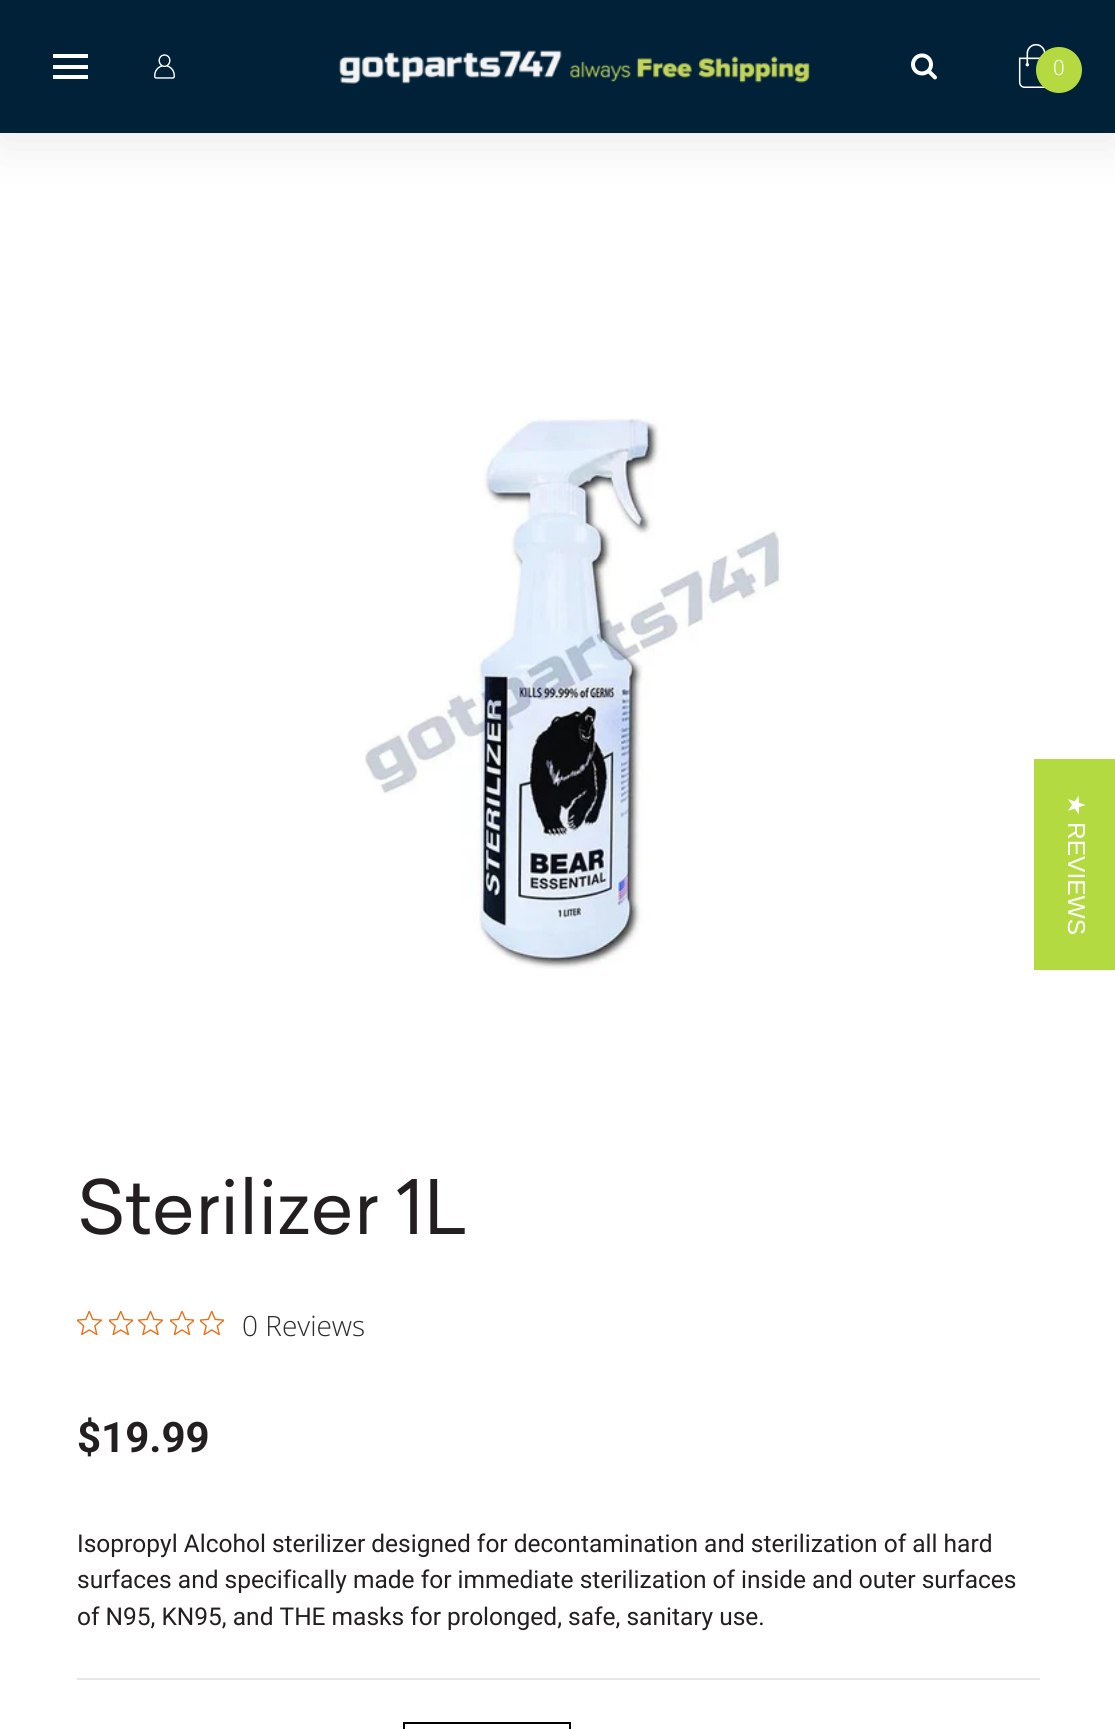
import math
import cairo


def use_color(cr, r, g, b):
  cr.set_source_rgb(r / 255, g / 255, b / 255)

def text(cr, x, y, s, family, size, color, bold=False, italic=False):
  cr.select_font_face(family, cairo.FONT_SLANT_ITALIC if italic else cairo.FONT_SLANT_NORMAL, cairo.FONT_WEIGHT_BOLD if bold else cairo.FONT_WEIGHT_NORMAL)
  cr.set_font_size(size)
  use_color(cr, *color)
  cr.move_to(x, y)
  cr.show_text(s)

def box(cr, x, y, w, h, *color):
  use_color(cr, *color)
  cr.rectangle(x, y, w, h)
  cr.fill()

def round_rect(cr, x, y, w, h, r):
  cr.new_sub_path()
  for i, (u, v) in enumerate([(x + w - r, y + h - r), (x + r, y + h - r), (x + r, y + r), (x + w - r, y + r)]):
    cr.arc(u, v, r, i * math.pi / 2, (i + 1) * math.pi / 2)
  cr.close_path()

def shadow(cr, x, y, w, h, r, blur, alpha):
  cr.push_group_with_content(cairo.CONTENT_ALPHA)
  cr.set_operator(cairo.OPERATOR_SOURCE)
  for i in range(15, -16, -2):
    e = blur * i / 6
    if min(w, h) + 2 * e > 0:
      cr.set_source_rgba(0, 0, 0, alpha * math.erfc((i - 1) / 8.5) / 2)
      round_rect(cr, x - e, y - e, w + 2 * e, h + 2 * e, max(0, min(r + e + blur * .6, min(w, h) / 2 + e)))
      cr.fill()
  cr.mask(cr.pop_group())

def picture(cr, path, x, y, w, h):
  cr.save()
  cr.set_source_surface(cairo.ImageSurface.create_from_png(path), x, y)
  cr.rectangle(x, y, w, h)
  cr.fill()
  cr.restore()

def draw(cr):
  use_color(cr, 255, 255, 255)
  cr.paint()
  use_color(cr, 0, 0, 0)
  shadow(cr, 0, 5, 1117, 133, 0, 26, 0.1)
  box(cr, 0, 0, 1115, 133, 0, 33, 56)
  box(cr, 53, 54, 35, 4, 255, 255, 255)
  box(cr, 53, 65, 35, 4, 255, 255, 255)
  box(cr, 53, 75, 35, 4, 255, 255, 255)
  picture(cr, "img_01.png", 154, 54, 21, 25)
  picture(cr, "img_02.png", 339, 50, 471, 34)
  picture(cr, "img_03.png", 911, 53, 26, 27)
  picture(cr, "img_04.png", 1018, 43, 28, 45)
  use_color(cr, 181, 218, 65)
  cr.arc(1059, 70, 23, 0, 2 * math.pi)
  cr.fill()
  picture(cr, "img_05.png", 365, 417, 417, 552)
  picture(cr, "img_06.png", 77, 1311, 25, 24)
  picture(cr, "img_07.png", 109, 1311, 24, 24)
  picture(cr, "img_08.png", 138, 1311, 25, 24)
  picture(cr, "img_09.png", 170, 1311, 24, 24)
  picture(cr, "img_07.png", 200, 1311, 24, 24)
  box(cr, 77, 1678, 963, 2, 230, 230, 230)
  cr.rectangle(404, 1723, 166, 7)
  use_color(cr, 0, 0, 0)
  cr.stroke()
  box(cr, 1034, 759, 81, 211, 180, 218, 66)
  text(cr, 1053, 75, "0", "Roboto Light", 21, (255, 255, 255))
  text(cr, 77, 1234, "Sterilizer 1L", "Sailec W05", 73.5, (35, 31, 32))
  text(cr, 242, 1336, "0 Reviews", "Open Sans Light", 28, (44, 44, 44))
  text(cr, 77, 1452, "$19.99", "Roboto", 42, (35, 31, 32), bold=True)
  text(cr, 77, 1552, "Isopropyl Alcohol sterilizer designed for decontamination and sterilization of all hard", "Roboto", 24.5, (35, 31, 32))
  text(cr, 77, 1588, "surfaces and specifically made for immediate sterilization of inside and outer surfaces", "Roboto", 24.5, (35, 31, 32))
  text(cr, 77, 1625, "of N95, KN95, and THE masks for prolonged, safe, sanitary use.", "Roboto", 24.5, (35, 31, 32))
  cr.save()
  cr.translate(1068, 794)
  cr.rotate(90 * math.pi / 180)
  text(cr, 0, 0, "★", "DejaVu Sans", 24.5, (255, 255, 255))
  cr.restore()
  cr.save()
  cr.translate(1068, 822)
  cr.rotate(90 * math.pi / 180)
  text(cr, 0, 0, "REVIEWS", "Liberation Sans", 24.5, (255, 255, 255))
  cr.restore()


surface = cairo.ImageSurface(cairo.FORMAT_RGB24, 1115, 1729)
cr = cairo.Context(surface)
options = cairo.FontOptions()
options.set_hint_metrics(cairo.HINT_METRICS_OFF)
options.set_hint_style(cairo.HINT_STYLE_NONE)
cr.set_font_options(options)
cr.set_miter_limit(4)
draw(cr)
surface.write_to_png("out.png")
